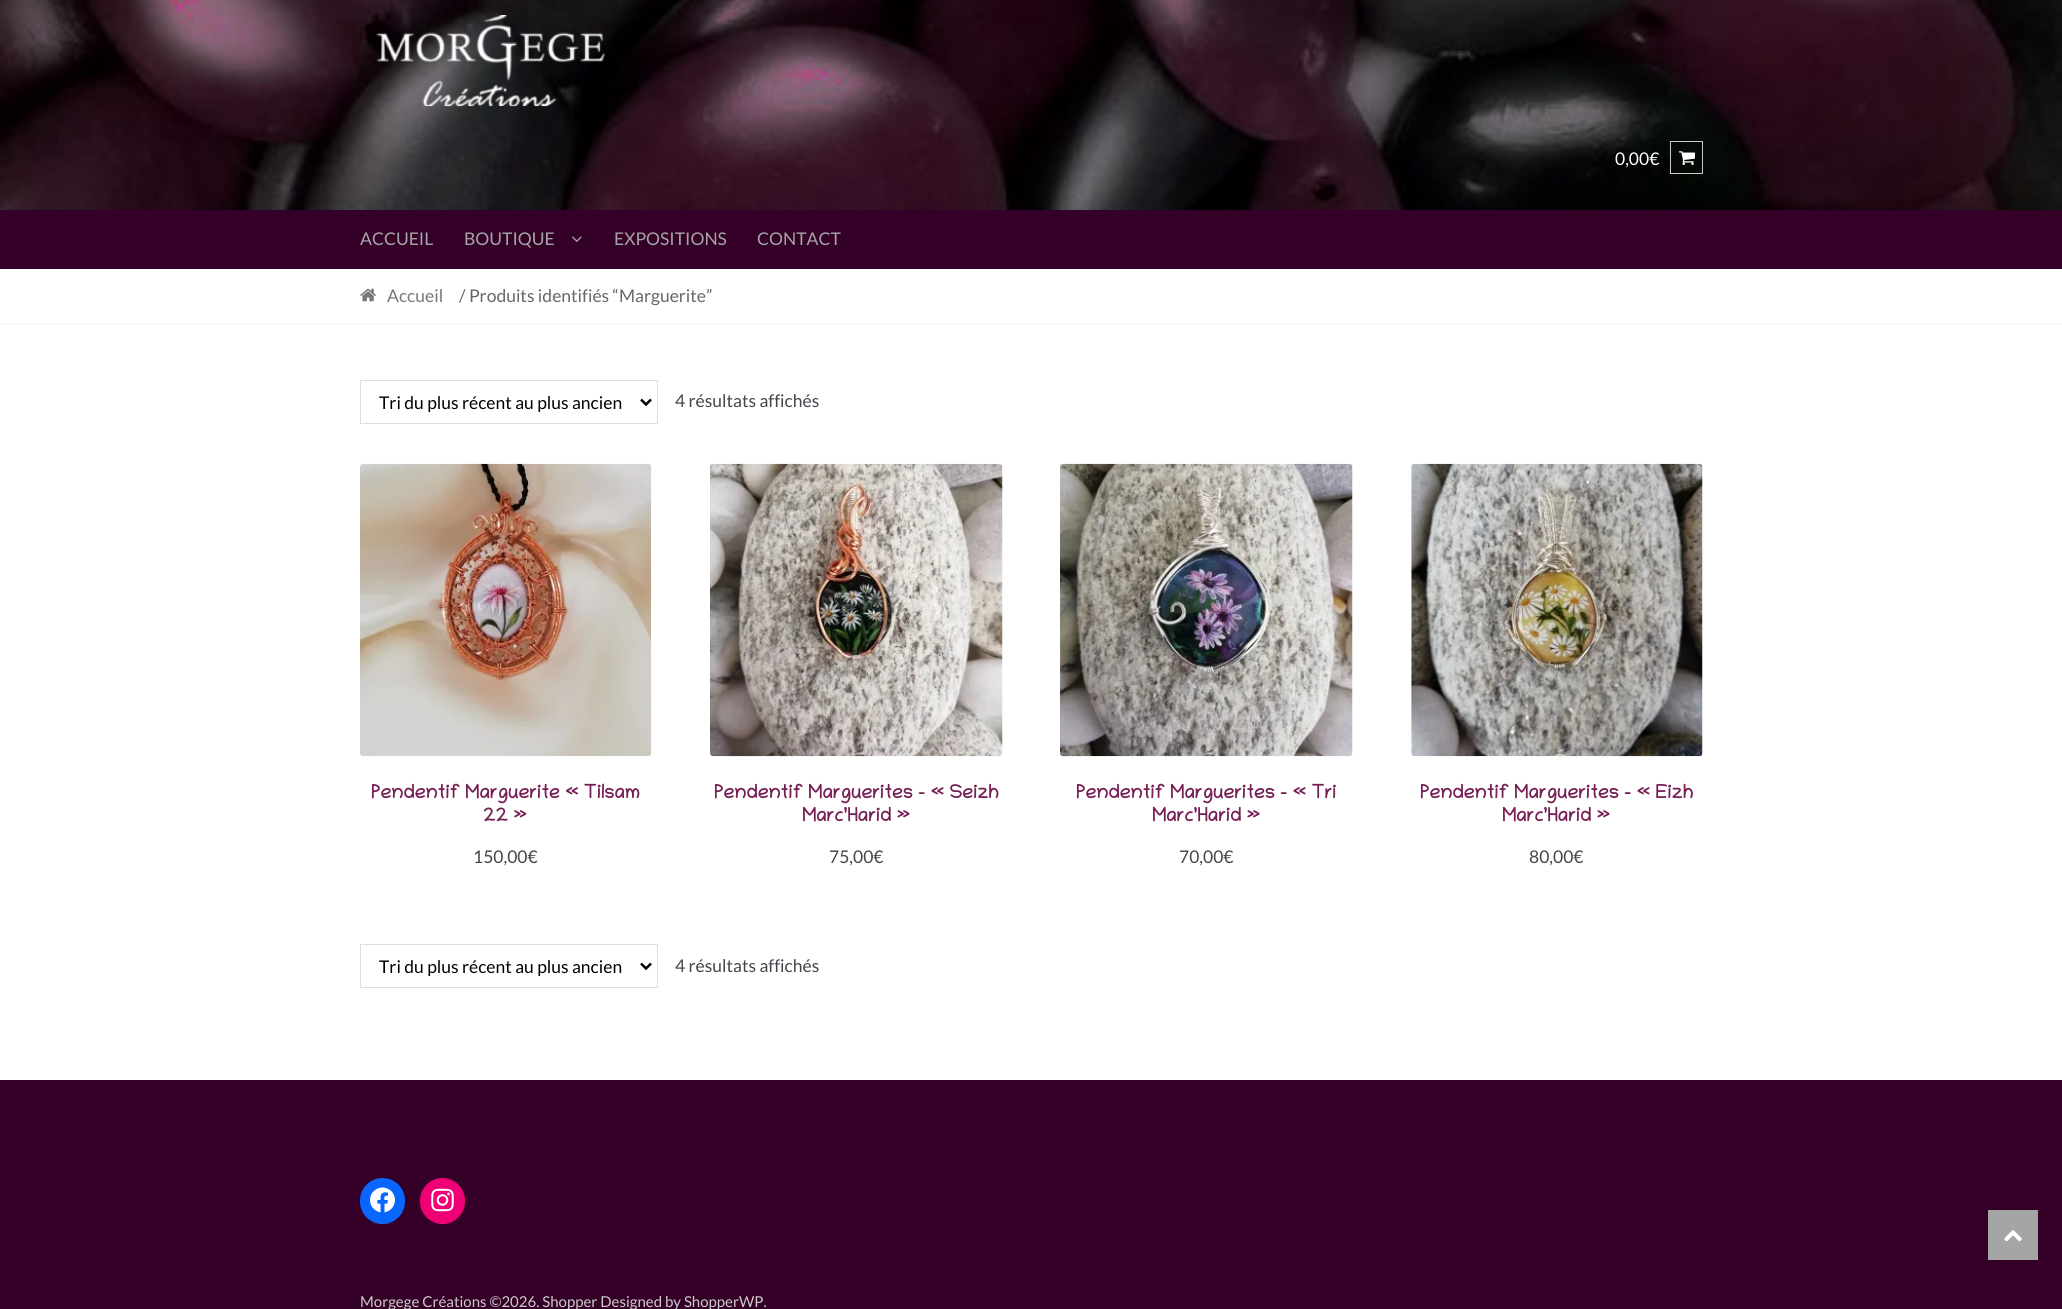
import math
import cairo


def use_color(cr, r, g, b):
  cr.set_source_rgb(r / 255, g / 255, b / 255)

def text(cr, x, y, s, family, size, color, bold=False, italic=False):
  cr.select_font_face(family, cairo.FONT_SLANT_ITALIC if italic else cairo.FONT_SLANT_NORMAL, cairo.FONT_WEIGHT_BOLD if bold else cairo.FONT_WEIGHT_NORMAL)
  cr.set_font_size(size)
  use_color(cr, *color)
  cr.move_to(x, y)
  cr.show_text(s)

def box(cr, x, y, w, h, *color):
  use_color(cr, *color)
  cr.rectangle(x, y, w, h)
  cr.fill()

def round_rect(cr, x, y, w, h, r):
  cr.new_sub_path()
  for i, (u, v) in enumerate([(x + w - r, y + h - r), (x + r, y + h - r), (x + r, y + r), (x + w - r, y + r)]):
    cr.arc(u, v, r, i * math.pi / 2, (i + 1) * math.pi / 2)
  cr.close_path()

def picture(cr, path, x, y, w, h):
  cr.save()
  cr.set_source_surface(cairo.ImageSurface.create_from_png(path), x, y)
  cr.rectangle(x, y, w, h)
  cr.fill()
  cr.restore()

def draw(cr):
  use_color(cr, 255, 255, 255)
  cr.paint()
  picture(cr, "img_01.png", 0, 0, 2062, 210)
  picture(cr, "img_02.png", 376, 15, 230, 92)
  cr.rectangle(1670.5, 141.5, 32, 32)
  use_color(cr, 204, 204, 204)
  cr.set_line_width(1)
  cr.stroke()
  picture(cr, "img_03.png", 1678, 151, 17, 14)
  box(cr, 0, 210, 2062, 59, 53, 0, 39)
  picture(cr, "img_04.png", 572, 236, 10, 6)
  box(cr, 0, 323, 2062, 1, 245, 245, 245)
  picture(cr, "img_05.png", 360, 288, 16, 14)
  cr.rectangle(360.5, 380.5, 297, 43)
  use_color(cr, 221, 221, 221)
  cr.stroke()
  cr.new_path()
  cr.move_to(641, 399.5)
  cr.line_to(646, 404.5)
  cr.line_to(651, 399.5)
  use_color(cr, 0, 0, 0)
  cr.set_line_width(2.5)
  cr.stroke()
  picture(cr, "img_06.png", 360, 463, 292, 294)
  picture(cr, "img_07.png", 710, 463, 293, 294)
  picture(cr, "img_08.png", 1060, 463, 293, 294)
  picture(cr, "img_09.png", 1411, 463, 292, 294)
  cr.rectangle(360.5, 944.5, 297, 43)
  use_color(cr, 221, 221, 221)
  cr.set_line_width(1)
  cr.stroke()
  cr.new_path()
  cr.move_to(641, 963.5)
  cr.line_to(646, 968.5)
  cr.line_to(651, 963.5)
  use_color(cr, 0, 0, 0)
  cr.set_line_width(2.5)
  cr.stroke()
  box(cr, 0, 1080, 2062, 229, 53, 0, 39)
  box(cr, 1988, 1210, 50, 50, 165, 165, 165)
  picture(cr, "img_10.png", 2004, 1230, 18, 12)
  use_color(cr, 8, 102, 255)
  round_rect(cr, 360, 1178, 45, 46, 22.5)
  cr.fill()
  cr.set_source_rgba(1, 1, 1, 0.05)
  cr.rectangle(371, 1223, 23, 1)
  cr.fill()
  picture(cr, "img_11.png", 370, 1187, 25, 26)
  use_color(cr, 240, 0, 117)
  round_rect(cr, 420, 1178, 45, 46, 22.5)
  cr.fill()
  cr.set_source_rgba(1, 1, 1, 0.05)
  cr.rectangle(431, 1223, 23, 1)
  cr.fill()
  picture(cr, "img_12.png", 431, 1188, 23, 24)
  text(cr, 1615, 165, "0,00€", "Lato", 17.5, (255, 255, 255))
  text(cr, 360, 245, "ACCUEIL", "Lato", 17.5, (165, 165, 165))
  text(cr, 464, 245, "BOUTIQUE", "Lato", 17.5, (165, 165, 165))
  text(cr, 614, 245, "EXPOSITIONS", "Lato", 17.5, (165, 165, 165))
  text(cr, 757, 245, "CONTACT", "Lato", 17.5, (165, 165, 165))
  text(cr, 387, 302, "Accueil", "Lato", 17.5, (117, 119, 125))
  text(cr, 459, 302, "/ Produits identifiés “Marguerite”", "Lato", 17.5, (102, 102, 102))
  text(cr, 379, 409, "Tri du plus récent au plus ancien", "Lato", 17.5, (0, 0, 0))
  text(cr, 675, 407, "4 résultats affichés", "Lato", 17.5, (67, 69, 75))
  text(cr, 371, 798, "Pendentif Marguerite « Tilsam", "Chilanka", 19.25, (117, 31, 85), bold=True)
  text(cr, 483, 821, "22 »", "Chilanka", 19.25, (117, 31, 85), bold=True)
  text(cr, 473, 863, "150,00€", "Lato", 17.5, (67, 69, 75))
  text(cr, 714, 798, "Pendentif Marguerites – « Seizh", "Chilanka", 19.25, (117, 31, 85), bold=True)
  text(cr, 802, 821, "Marc’Harid »", "Chilanka", 19.25, (117, 31, 85), bold=True)
  text(cr, 829, 863, "75,00€", "Lato", 17.5, (67, 69, 75))
  text(cr, 1076, 798, "Pendentif Marguerites – « Tri", "Chilanka", 19.25, (117, 31, 85), bold=True)
  text(cr, 1152, 821, "Marc’Harid »", "Chilanka", 19.25, (117, 31, 85), bold=True)
  text(cr, 1179, 863, "70,00€", "Lato", 17.5, (67, 69, 75))
  text(cr, 1420, 798, "Pendentif Marguerites – « Eizh", "Chilanka", 19.25, (117, 31, 85), bold=True)
  text(cr, 1502, 821, "Marc’Harid »", "Chilanka", 19.25, (117, 31, 85), bold=True)
  text(cr, 1529, 863, "80,00€", "Lato", 17.5, (67, 69, 75))
  text(cr, 379, 973, "Tri du plus récent au plus ancien", "Lato", 17.5, (0, 0, 0))
  text(cr, 675, 972, "4 résultats affichés", "Lato", 17.5, (67, 69, 75))
  text(cr, 360, 1307, "Morgege Créations ©2026. Shopper Designed by ShopperWP.", "Lato", 15, (204, 204, 204))


surface = cairo.ImageSurface(cairo.FORMAT_RGB24, 2062, 1309)
cr = cairo.Context(surface)
options = cairo.FontOptions()
options.set_hint_metrics(cairo.HINT_METRICS_OFF)
options.set_hint_style(cairo.HINT_STYLE_NONE)
cr.set_font_options(options)
cr.set_miter_limit(4)
draw(cr)
surface.write_to_png("out.png")
